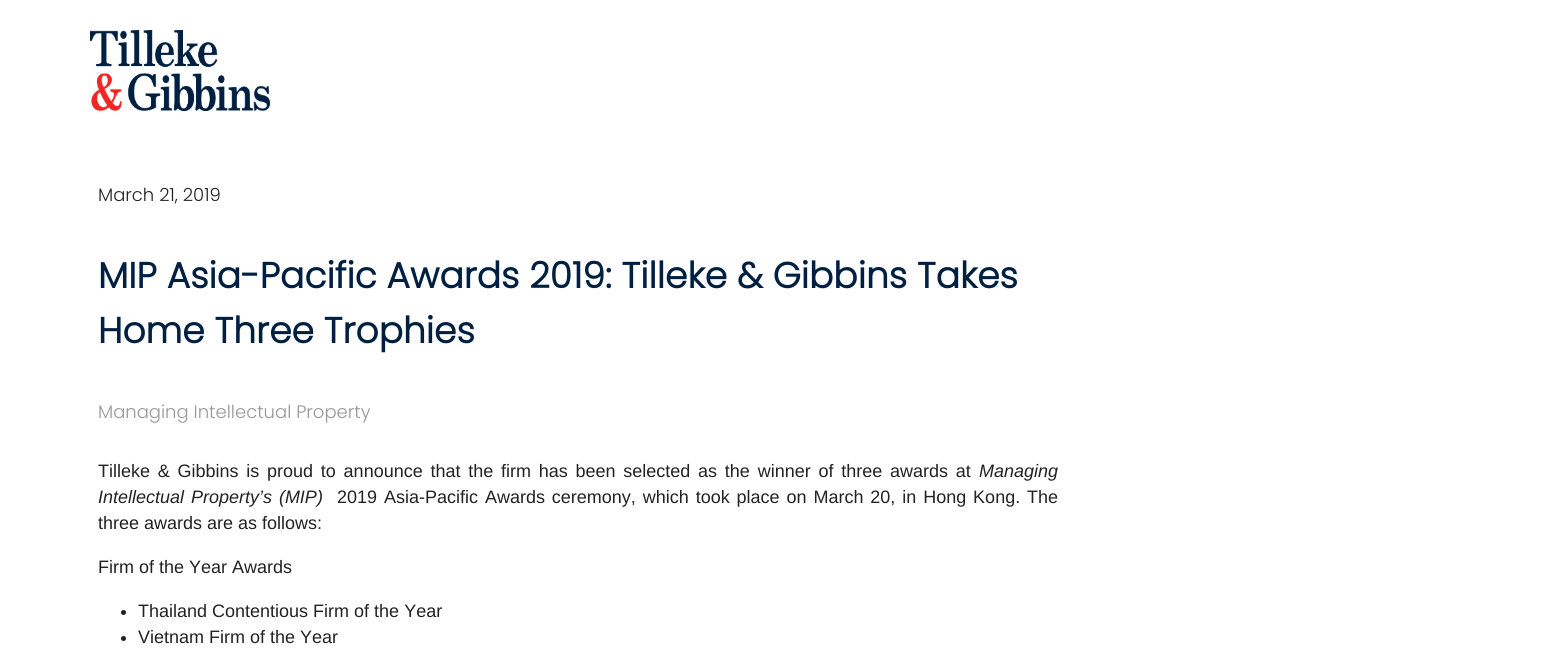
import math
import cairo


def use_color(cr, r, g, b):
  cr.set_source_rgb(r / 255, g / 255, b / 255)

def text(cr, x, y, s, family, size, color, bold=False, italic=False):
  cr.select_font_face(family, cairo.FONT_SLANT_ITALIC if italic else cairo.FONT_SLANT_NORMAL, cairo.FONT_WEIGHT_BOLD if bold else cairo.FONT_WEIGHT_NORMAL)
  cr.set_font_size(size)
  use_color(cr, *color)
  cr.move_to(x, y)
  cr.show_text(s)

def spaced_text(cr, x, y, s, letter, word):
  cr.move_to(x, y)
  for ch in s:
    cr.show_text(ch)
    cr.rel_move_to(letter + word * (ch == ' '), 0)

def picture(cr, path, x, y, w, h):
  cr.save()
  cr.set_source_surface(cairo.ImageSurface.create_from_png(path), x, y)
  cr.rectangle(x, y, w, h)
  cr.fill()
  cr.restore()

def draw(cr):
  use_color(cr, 255, 255, 255)
  cr.paint()
  picture(cr, "img_01.png", 90, 30, 180, 81)
  use_color(cr, 34, 34, 34)
  cr.arc(123.5, 612.5, 2.5, 0, 2 * math.pi)
  cr.fill()
  cr.arc(123.5, 638.5, 2.5, 0, 2 * math.pi)
  cr.fill()
  text(cr, 98, 201, "March 21, 2019", "Poppins Light", 18, (34, 34, 34))
  text(cr, 98, 288, "MIP Asia-Pacific Awards 2019: Tilleke & Gibbins Takes", "Poppins", 36, (0, 32, 66), bold=True)
  text(cr, 98, 343, "Home Three Trophies", "Poppins", 36, (0, 32, 66), bold=True)
  text(cr, 98, 418, "Managing Intellectual Property", "Poppins Light", 18, (151, 151, 151))
  cr.select_font_face("Liberation Sans")
  use_color(cr, 34, 34, 34)
  spaced_text(cr, 98, 477, "Tilleke & Gibbins is proud to announce that the firm has been selected as the winner of three awards at", 0, 2.75)
  text(cr, 979, 477, "Managing", "Liberation Sans", 18, (34, 34, 34), italic=True)
  spaced_text(cr, 98, 503, "Intellectual Property’s (MIP)", 0, 1.9)
  cr.select_font_face("Liberation Sans")
  spaced_text(cr, 337, 503, "2019 Asia-Pacific Awards ceremony, which took place on March 20, in Hong Kong. The", 0, 1.9)
  text(cr, 98, 529, "three awards are as follows:", "Liberation Sans", 18, (34, 34, 34))
  text(cr, 98, 573, "Firm of the Year Awards", "Liberation Sans", 18, (34, 34, 34))
  text(cr, 138, 617, "Thailand Contentious Firm of the Year", "Liberation Sans", 18, (34, 34, 34))
  text(cr, 138, 643, "Vietnam Firm of the Year", "Liberation Sans", 18, (34, 34, 34))


surface = cairo.ImageSurface(cairo.FORMAT_RGB24, 1552, 670)
cr = cairo.Context(surface)
options = cairo.FontOptions()
options.set_hint_metrics(cairo.HINT_METRICS_OFF)
options.set_hint_style(cairo.HINT_STYLE_NONE)
cr.set_font_options(options)
cr.set_miter_limit(4)
draw(cr)
surface.write_to_png("out.png")
